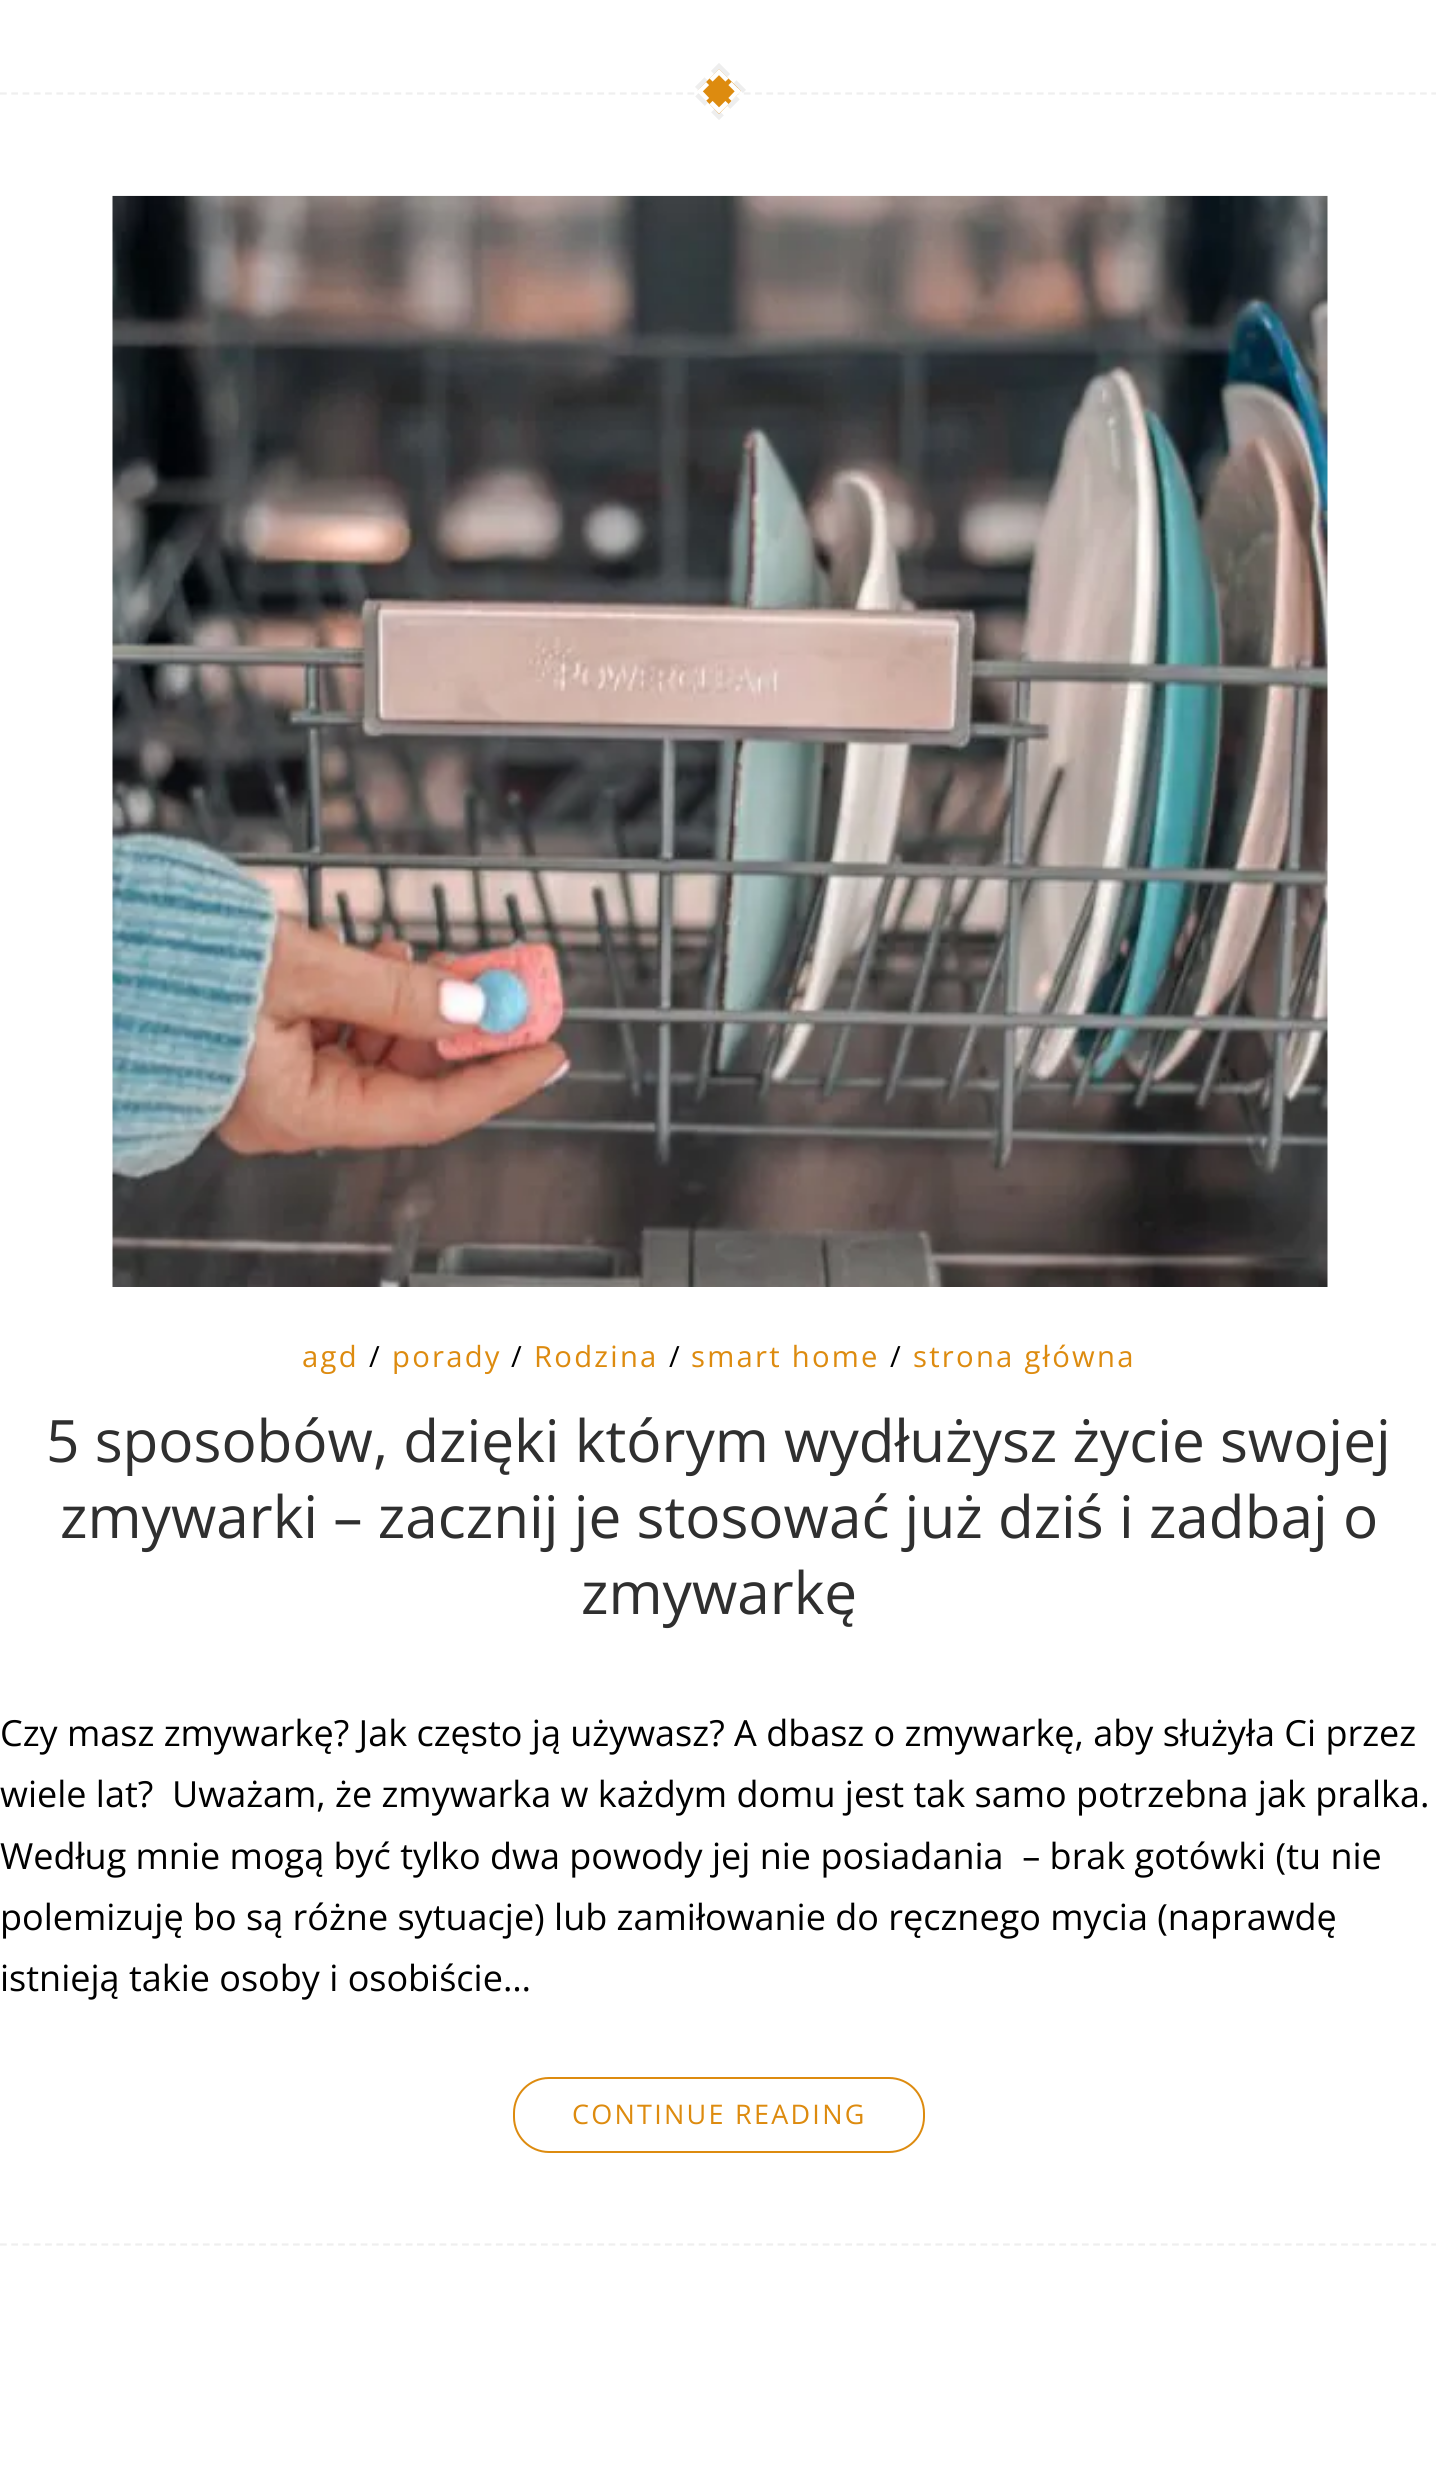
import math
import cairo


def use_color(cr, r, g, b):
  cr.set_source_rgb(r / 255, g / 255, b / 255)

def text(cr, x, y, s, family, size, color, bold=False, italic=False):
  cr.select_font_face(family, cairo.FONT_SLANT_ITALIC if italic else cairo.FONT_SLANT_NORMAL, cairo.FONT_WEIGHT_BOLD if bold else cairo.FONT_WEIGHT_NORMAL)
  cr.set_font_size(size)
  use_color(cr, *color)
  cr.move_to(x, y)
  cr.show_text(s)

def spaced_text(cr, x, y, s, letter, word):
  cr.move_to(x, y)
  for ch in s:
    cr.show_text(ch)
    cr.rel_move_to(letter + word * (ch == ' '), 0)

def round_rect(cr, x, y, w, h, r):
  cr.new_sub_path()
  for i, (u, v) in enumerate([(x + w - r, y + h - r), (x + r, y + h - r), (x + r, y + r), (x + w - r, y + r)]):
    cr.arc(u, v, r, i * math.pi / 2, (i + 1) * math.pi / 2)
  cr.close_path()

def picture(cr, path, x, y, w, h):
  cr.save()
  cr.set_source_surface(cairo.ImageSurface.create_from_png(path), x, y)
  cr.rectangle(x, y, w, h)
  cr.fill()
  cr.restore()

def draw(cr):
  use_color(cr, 255, 255, 255)
  cr.paint()
  cr.new_path()
  cr.move_to(0, 93.5)
  cr.line_to(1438, 93.5)
  use_color(cr, 239, 239, 239)
  cr.set_line_width(2.2)
  cr.set_dash([6.75, 4.52])
  cr.stroke()
  use_color(cr, 221, 139, 15)
  cr.new_path()
  cr.move_to(719, 69)
  cr.line_to(741, 91)
  cr.line_to(719, 114)
  cr.line_to(697, 91)
  cr.close_path()
  cr.fill()
  cr.new_path()
  cr.move_to(717.5, 70.5)
  cr.line_to(727, 80)
  cr.move_to(730, 83.5)
  cr.line_to(739.5, 93)
  cr.move_to(739.5, 89.5)
  cr.line_to(730, 99.5)
  cr.move_to(727, 102.5)
  cr.line_to(717.5, 112)
  cr.move_to(698, 89.5)
  cr.line_to(707.5, 99.5)
  cr.move_to(711, 102.5)
  cr.line_to(720.5, 112)
  cr.move_to(720.5, 70.5)
  cr.line_to(711, 80)
  cr.move_to(707.5, 83.5)
  cr.line_to(698, 93)
  use_color(cr, 255, 255, 255)
  cr.set_line_width(4.5)
  cr.set_dash([])
  cr.stroke()
  cr.new_path()
  cr.move_to(719, 66)
  cr.line_to(744.5, 91.5)
  cr.line_to(719, 117)
  cr.line_to(693.5, 91.5)
  cr.close_path()
  cr.set_source_rgba(0.745, 0.745, 0.745, 0.25)
  cr.set_dash([13.5, 9])
  cr.stroke()
  cr.new_path()
  cr.move_to(0, 2244.5)
  cr.line_to(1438, 2244.5)
  use_color(cr, 239, 239, 239)
  cr.set_line_width(2.2)
  cr.set_dash([6.75, 4.52])
  cr.stroke()
  picture(cr, "img_01.png", 112, 195, 1216, 1092)
  round_rect(cr, 514, 2078, 410, 74, 35)
  use_color(cr, 221, 139, 15)
  cr.set_line_width(2)
  cr.set_dash([])
  cr.stroke()
  cr.select_font_face("Open Sans")
  cr.set_font_size(29.25)
  spaced_text(cr, 302, 1367, "agd", 2.25, 0)
  use_color(cr, 0, 0, 0)
  spaced_text(cr, 369, 1367, "/", 2.25, 0)
  use_color(cr, 221, 139, 15)
  spaced_text(cr, 392, 1367, "porady", 2.25, 0)
  use_color(cr, 0, 0, 0)
  spaced_text(cr, 511, 1367, "/", 2.25, 0)
  use_color(cr, 221, 139, 15)
  spaced_text(cr, 534, 1367, "Rodzina", 2.25, 0)
  use_color(cr, 0, 0, 0)
  spaced_text(cr, 669, 1367, "/", 2.25, 0)
  use_color(cr, 221, 139, 15)
  spaced_text(cr, 691, 1367, "smart home", 2.25, 0)
  use_color(cr, 0, 0, 0)
  spaced_text(cr, 890, 1367, "/", 2.25, 0)
  use_color(cr, 221, 139, 15)
  spaced_text(cr, 913, 1367, "strona główna", 2.25, 0)
  text(cr, 46, 1462, "5 sposobów, dzięki którym wydłużysz życie swojej", "Open Sans", 58.5, (47, 47, 47))
  text(cr, 60, 1538, "zmywarki – zacznij je stosować już dziś i zadbaj o", "Open Sans", 58.5, (47, 47, 47))
  text(cr, 581, 1614, "zmywarkę", "Open Sans", 58.5, (47, 47, 47))
  text(cr, 0, 1746, "Czy masz zmywarkę? Jak często ją używasz? A dbasz o zmywarkę, aby służyła Ci przez", "Open Sans", 36, (0, 0, 0))
  text(cr, 0, 1807, "wiele lat?  Uważam, że zmywarka w każdym domu jest tak samo potrzebna jak pralka.", "Open Sans", 36, (0, 0, 0))
  text(cr, 0, 1869, "Według mnie mogą być tylko dwa powody jej nie posiadania  – brak gotówki (tu nie", "Open Sans", 36, (0, 0, 0))
  text(cr, 0, 1930, "polemizuję bo są różne sytuacje) lub zamiłowanie do ręcznego mycia (naprawdę", "Open Sans", 36, (0, 0, 0))
  text(cr, 0, 1991, "istnieją takie osoby i osobiście…", "Open Sans", 36, (0, 0, 0))
  cr.set_font_size(27)
  use_color(cr, 221, 139, 15)
  spaced_text(cr, 572, 2124, "CONTINUE READING", 2.25, 0)


surface = cairo.ImageSurface(cairo.FORMAT_RGB24, 1436, 2469)
cr = cairo.Context(surface)
options = cairo.FontOptions()
options.set_hint_metrics(cairo.HINT_METRICS_OFF)
options.set_hint_style(cairo.HINT_STYLE_NONE)
cr.set_font_options(options)
cr.set_miter_limit(4)
draw(cr)
surface.write_to_png("out.png")
